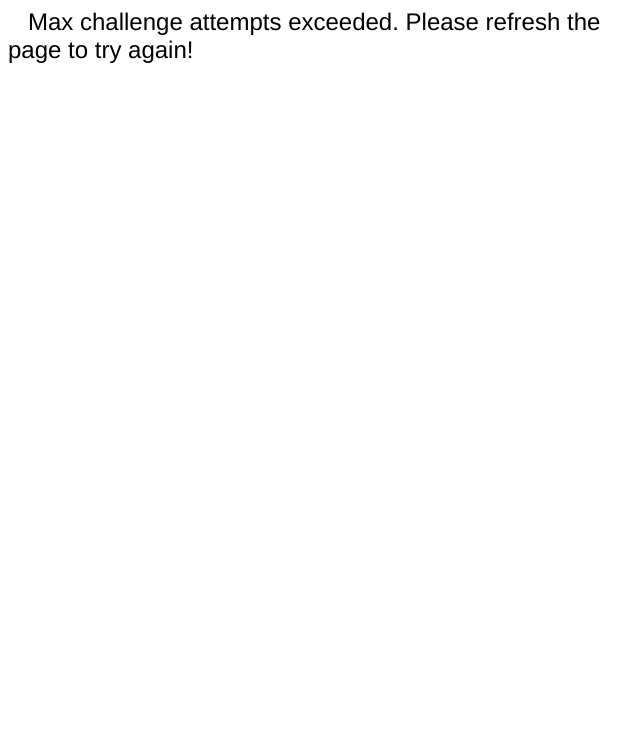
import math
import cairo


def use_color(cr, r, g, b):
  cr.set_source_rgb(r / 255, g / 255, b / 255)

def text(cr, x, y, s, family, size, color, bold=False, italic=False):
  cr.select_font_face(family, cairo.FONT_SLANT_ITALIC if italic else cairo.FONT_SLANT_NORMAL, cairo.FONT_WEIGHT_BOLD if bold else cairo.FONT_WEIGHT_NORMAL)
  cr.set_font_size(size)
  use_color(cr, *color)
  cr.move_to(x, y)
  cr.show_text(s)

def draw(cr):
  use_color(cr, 255, 255, 255)
  cr.paint()
  text(cr, 28, 30, "Max challenge attempts exceeded. Please refresh the", "Liberation Sans", 24, (0, 0, 0))
  text(cr, 8, 58, "page to try again!", "Liberation Sans", 24, (0, 0, 0))


surface = cairo.ImageSurface(cairo.FORMAT_RGB24, 622, 738)
cr = cairo.Context(surface)
options = cairo.FontOptions()
options.set_hint_metrics(cairo.HINT_METRICS_OFF)
options.set_hint_style(cairo.HINT_STYLE_NONE)
cr.set_font_options(options)
cr.set_miter_limit(4)
draw(cr)
surface.write_to_png("out.png")
